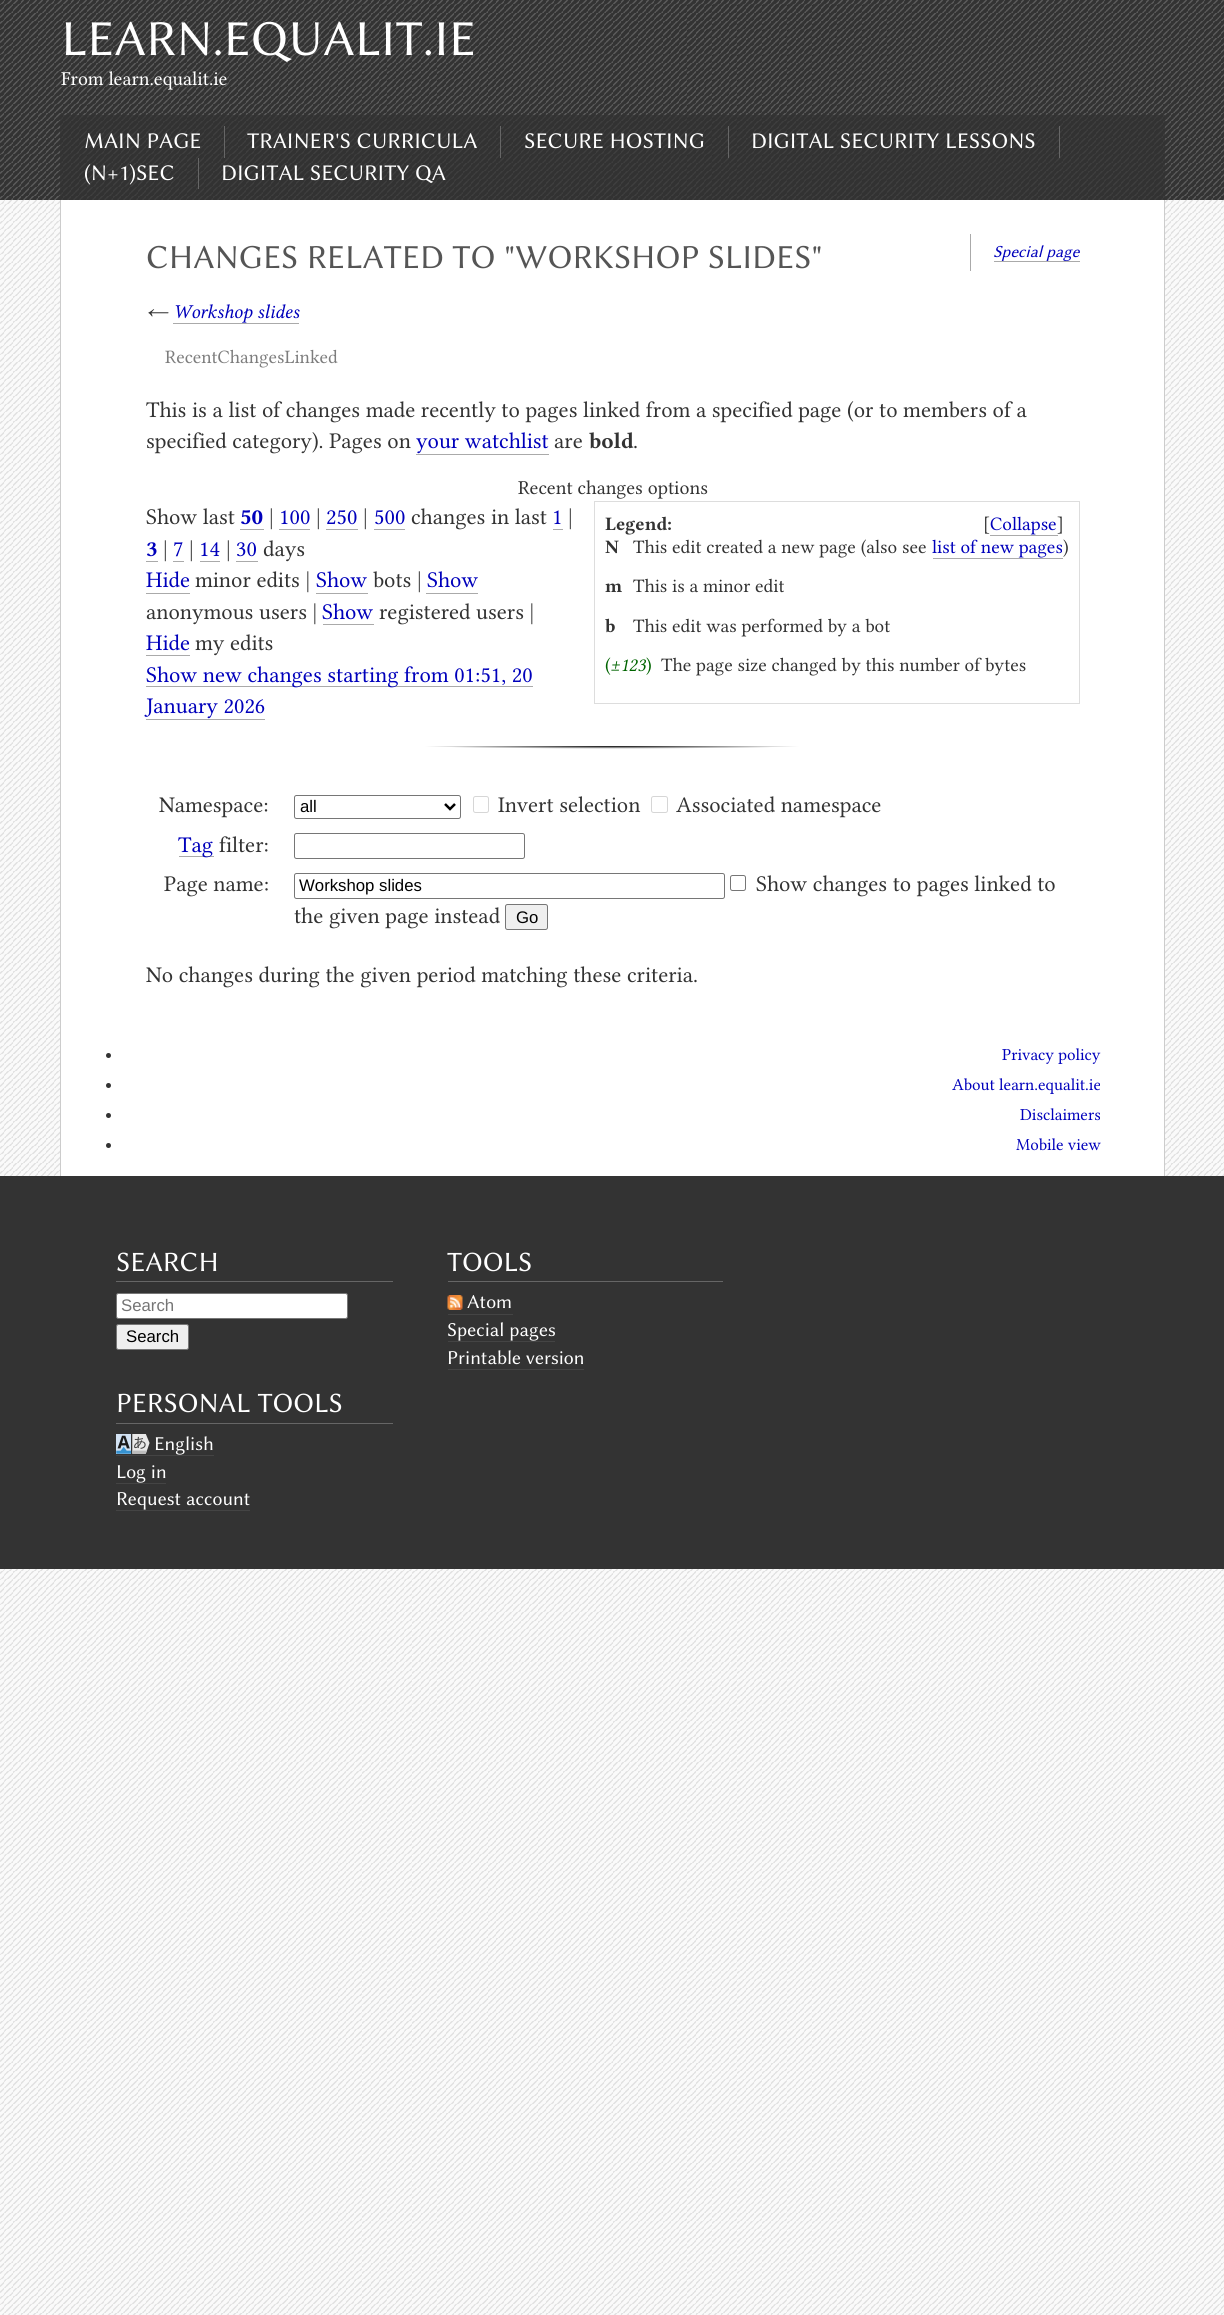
import math
import cairo


def use_color(cr, r, g, b):
  cr.set_source_rgb(r / 255, g / 255, b / 255)

def text(cr, x, y, s, family, size, color, bold=False, italic=False):
  cr.select_font_face(family, cairo.FONT_SLANT_ITALIC if italic else cairo.FONT_SLANT_NORMAL, cairo.FONT_WEIGHT_BOLD if bold else cairo.FONT_WEIGHT_NORMAL)
  cr.set_font_size(size)
  use_color(cr, *color)
  cr.move_to(x, y)
  cr.show_text(s)

def box(cr, x, y, w, h, *color):
  use_color(cr, *color)
  cr.rectangle(x, y, w, h)
  cr.fill()

def round_rect(cr, x, y, w, h, r):
  cr.new_sub_path()
  for i, (u, v) in enumerate([(x + w - r, y + h - r), (x + r, y + h - r), (x + r, y + r), (x + w - r, y + r)]):
    cr.arc(u, v, r, i * math.pi / 2, (i + 1) * math.pi / 2)
  cr.close_path()

def picture(cr, path, x, y, w, h):
  cr.save()
  cr.set_source_surface(cairo.ImageSurface.create_from_png(path), x, y)
  cr.rectangle(x, y, w, h)
  cr.fill()
  cr.restore()

def draw(cr):
  use_color(cr, 250, 250, 250)
  cr.paint()
  picture(cr, "img_01.png", 0, 200, 1224, 2115)
  box(cr, 0, 0, 1224, 200, 51, 51, 51)
  picture(cr, "img_02.png", 0, 0, 1224, 200)
  cr.set_source_rgba(0.196, 0.196, 0.196, 0.7)
  cr.rectangle(1164, 115, 1, 85)
  cr.fill()
  cr.rectangle(60, 115, 1, 85)
  cr.fill()
  cr.rectangle(61, 115, 1103, 85)
  cr.fill()
  box(cr, 224, 126, 1, 32, 102, 102, 102)
  box(cr, 500, 126, 1, 32, 102, 102, 102)
  box(cr, 728, 126, 1, 32, 102, 102, 102)
  box(cr, 1059, 126, 1, 32, 102, 102, 102)
  box(cr, 198, 158, 1, 31, 102, 102, 102)
  box(cr, 61, 200, 1103, 976, 255, 255, 255)
  box(cr, 1164, 200, 1, 976, 204, 204, 204)
  box(cr, 60, 200, 1, 976, 204, 204, 204)
  box(cr, 173, 323, 126, 1, 170, 170, 170)
  box(cr, 416, 454, 133, 1, 170, 170, 170)
  box(cr, 240, 529, 24, 1, 170, 170, 170)
  box(cr, 279, 529, 31, 1, 170, 170, 170)
  box(cr, 326, 529, 32, 1, 170, 170, 170)
  box(cr, 374, 529, 31, 1, 170, 170, 170)
  box(cr, 553, 529, 10, 1, 170, 170, 170)
  cr.rectangle(594.5, 501.5, 485, 202)
  use_color(cr, 221, 221, 221)
  cr.set_line_width(1)
  cr.stroke()
  box(cr, 990, 535, 68, 1, 170, 170, 170)
  box(cr, 933, 558, 130, 1, 170, 170, 170)
  box(cr, 146, 561, 12, 1, 170, 170, 170)
  box(cr, 173, 561, 11, 1, 170, 170, 170)
  box(cr, 200, 561, 20, 1, 170, 170, 170)
  box(cr, 236, 561, 22, 1, 170, 170, 170)
  box(cr, 146, 593, 44, 1, 170, 170, 170)
  box(cr, 316, 593, 52, 1, 170, 170, 170)
  box(cr, 426, 593, 52, 1, 170, 170, 170)
  box(cr, 323, 624, 51, 1, 170, 170, 170)
  box(cr, 146, 655, 44, 1, 170, 170, 170)
  box(cr, 146, 686, 387, 1, 170, 170, 170)
  box(cr, 146, 719, 119, 1, 170, 170, 170)
  gradient = cairo.RadialGradient(0, 0, 0, 0, 0, 1)
  gradient.set_matrix(cairo.Matrix(1 / 190, 0, 0, 1 / 2.8, -1 * 612 / 190, -1 * 746 / 2.8))
  gradient.add_color_stop_rgba(0, 0, 0, 0, 1)
  gradient.add_color_stop_rgba(1, 1, 1, 1, 1)
  cr.set_source(gradient)
  cr.rectangle(422, 746, 380, 3)
  cr.fill()
  round_rect(cr, 294.5, 795.5, 166, 23, 2)
  use_color(cr, 118, 118, 118)
  cr.stroke()
  cr.new_path()
  cr.move_to(445, 804)
  cr.line_to(450, 809)
  cr.line_to(455, 804)
  use_color(cr, 0, 0, 0)
  cr.set_line_width(2.5)
  cr.stroke()
  round_rect(cr, 473.5, 796.5, 15, 16, 2)
  use_color(cr, 214, 214, 214)
  cr.set_line_width(1)
  cr.stroke()
  round_rect(cr, 651.5, 796.5, 16, 16, 2)
  cr.stroke()
  box(cr, 179, 856, 35, 1, 170, 170, 170)
  round_rect(cr, 294.5, 833.5, 230, 25, 2)
  use_color(cr, 118, 118, 118)
  cr.stroke()
  round_rect(cr, 294.5, 873.5, 430, 25, 2)
  cr.stroke()
  round_rect(cr, 730.5, 875.5, 15, 15, 2)
  cr.stroke()
  use_color(cr, 239, 239, 239)
  round_rect(cr, 505.5, 904.5, 42, 25, 2)
  cr.fill_preserve()
  use_color(cr, 118, 118, 118)
  cr.stroke()
  box(cr, 970, 234, 1, 37, 170, 170, 170)
  box(cr, 994, 261, 86, 1, 170, 170, 170)
  use_color(cr, 51, 51, 51)
  cr.arc(108.5, 1055.5, 2.5, 0, 2 * math.pi)
  cr.fill()
  cr.arc(108.5, 1085.5, 2.5, 0, 2 * math.pi)
  cr.fill()
  cr.arc(108.5, 1115.5, 2.5, 0, 2 * math.pi)
  cr.fill()
  cr.arc(108.5, 1145.5, 2.5, 0, 2 * math.pi)
  cr.fill()
  box(cr, 0, 1176, 1224, 393, 51, 51, 51)
  box(cr, 116, 1281, 277, 1, 102, 102, 102)
  use_color(cr, 255, 255, 255)
  round_rect(cr, 116.5, 1293.5, 231, 25, 2)
  cr.fill_preserve()
  use_color(cr, 118, 118, 118)
  cr.stroke()
  use_color(cr, 239, 239, 239)
  round_rect(cr, 116.5, 1324.5, 72, 25, 2)
  cr.fill_preserve()
  use_color(cr, 118, 118, 118)
  cr.stroke()
  box(cr, 116, 1423, 277, 1, 102, 102, 102)
  picture(cr, "img_03.png", 116, 1434, 34, 20)
  box(cr, 116, 1455, 98, 1, 68, 68, 68)
  box(cr, 116, 1483, 50, 1, 68, 68, 68)
  box(cr, 116, 1510, 134, 1, 68, 68, 68)
  box(cr, 448, 1281, 275, 1, 102, 102, 102)
  picture(cr, "img_04.png", 447, 1295, 16, 15)
  box(cr, 448, 1314, 65, 1, 68, 68, 68)
  box(cr, 448, 1341, 107, 1, 68, 68, 68)
  box(cr, 448, 1369, 136, 1, 68, 68, 68)
  text(cr, 61, 55, "LEARN.EQUALIT.IE", "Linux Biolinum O", 50.5, (255, 255, 255))
  text(cr, 61, 85, "From learn.equalit.ie", "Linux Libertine", 19.75, (255, 255, 255))
  text(cr, 84, 148, "MAIN PAGE", "Linux Biolinum O", 22.5, (255, 255, 255))
  text(cr, 247, 148, "TRAINER'S CURRICULA", "Linux Biolinum O", 22.5, (255, 255, 255))
  text(cr, 524, 148, "SECURE HOSTING", "Linux Biolinum O", 22.5, (255, 255, 255))
  text(cr, 751, 148, "DIGITAL SECURITY LESSONS", "Linux Biolinum O", 22.5, (255, 255, 255))
  text(cr, 84, 180, "(N+1)SEC", "Linux Biolinum O", 22.5, (255, 255, 255))
  text(cr, 221, 180, "DIGITAL SECURITY QA", "Linux Biolinum O", 22.5, (255, 255, 255))
  text(cr, 146, 268, "CHANGES RELATED TO \"WORKSHOP SLIDES\"", "Linux Biolinum O", 33.75, (85, 85, 85))
  text(cr, 146, 318, "←", "Linux Libertine", 19.75, (51, 51, 51), italic=True)
  text(cr, 173, 318, "Workshop slides", "Linux Libertine", 19.75, (0, 0, 187), italic=True)
  text(cr, 165, 363, "RecentChangesLinked", "Linux Libertine", 19, (125, 125, 125))
  text(cr, 146, 417, "This is a list of changes made recently to pages linked from a specified page (or to members of a", "Linux Libertine", 22.5, (51, 51, 51))
  text(cr, 146, 448, "specified category). Pages on", "Linux Libertine", 22.5, (51, 51, 51))
  text(cr, 416, 448, "your watchlist", "Linux Libertine", 22.5, (0, 0, 187))
  text(cr, 554, 448, "are", "Linux Libertine", 22.5, (51, 51, 51))
  text(cr, 589, 448, "bold", "Linux Libertine", 22.5, (51, 51, 51), bold=True)
  text(cr, 633, 448, ".", "Linux Libertine", 22.5, (51, 51, 51))
  text(cr, 518, 494, "Recent changes options", "Linux Libertine", 19.75, (51, 51, 51))
  text(cr, 146, 524, "Show last", "Linux Libertine", 22.5, (51, 51, 51))
  text(cr, 240, 524, "50", "Linux Libertine", 22.5, (0, 0, 187), bold=True)
  text(cr, 269, 524, "|", "Linux Libertine", 22.5, (51, 51, 51))
  text(cr, 279, 524, "100", "Linux Libertine", 22.5, (0, 0, 187))
  text(cr, 316, 524, "|", "Linux Libertine", 22.5, (51, 51, 51))
  text(cr, 326, 524, "250", "Linux Libertine", 22.5, (0, 0, 187))
  text(cr, 363, 524, "|", "Linux Libertine", 22.5, (51, 51, 51))
  text(cr, 374, 524, "500", "Linux Libertine", 22.5, (0, 0, 187))
  text(cr, 411, 524, "changes in last", "Linux Libertine", 22.5, (51, 51, 51))
  text(cr, 552, 524, "1", "Linux Libertine", 22.5, (0, 0, 187))
  text(cr, 568, 524, "|", "Linux Libertine", 22.5, (51, 51, 51))
  text(cr, 605, 530, "Legend:", "Linux Libertine", 19.1, (51, 51, 51), bold=True)
  text(cr, 983, 530, "[", "Linux Libertine", 19.1, (51, 51, 51))
  text(cr, 990, 530, "Collapse", "Linux Libertine", 19.1, (0, 0, 187))
  text(cr, 1057, 530, "]", "Linux Libertine", 19.1, (51, 51, 51))
  text(cr, 605, 553, "N", "Linux Libertine", 19.1, (51, 51, 51), bold=True)
  text(cr, 633, 553, "This edit created a new page (also see", "Linux Libertine", 19.1, (51, 51, 51))
  text(cr, 932, 553, "list of new pages", "Linux Libertine", 19.1, (0, 0, 187))
  text(cr, 1063, 553, ")", "Linux Libertine", 19.1, (51, 51, 51))
  text(cr, 605, 592, "m", "Linux Libertine", 19.1, (51, 51, 51), bold=True)
  text(cr, 633, 592, "This is a minor edit", "Linux Libertine", 19.1, (51, 51, 51))
  text(cr, 605, 632, "b", "Linux Libertine", 19.1, (51, 51, 51), bold=True)
  text(cr, 633, 632, "This edit was performed by a bot", "Linux Libertine", 19.1, (51, 51, 51))
  text(cr, 605, 671, "(", "Linux Libertine", 19.1, (0, 100, 0))
  text(cr, 610, 671, "±123", "Linux Libertine", 19.1, (0, 100, 0), italic=True)
  text(cr, 646, 671, ")", "Linux Libertine", 19.1, (0, 100, 0))
  text(cr, 661, 671, "The page size changed by this number of bytes", "Linux Libertine", 19.1, (51, 51, 51))
  text(cr, 146, 556, "3", "Linux Libertine", 22.5, (0, 0, 187), bold=True)
  text(cr, 163, 556, "|", "Linux Libertine", 22.5, (51, 51, 51))
  text(cr, 173, 556, "7", "Linux Libertine", 22.5, (0, 0, 187))
  text(cr, 189, 556, "|", "Linux Libertine", 22.5, (51, 51, 51))
  text(cr, 199, 556, "14", "Linux Libertine", 22.5, (0, 0, 187))
  text(cr, 226, 556, "|", "Linux Libertine", 22.5, (51, 51, 51))
  text(cr, 236, 556, "30", "Linux Libertine", 22.5, (0, 0, 187))
  text(cr, 263, 556, "days", "Linux Libertine", 22.5, (51, 51, 51))
  text(cr, 146, 587, "Hide", "Linux Libertine", 22.5, (0, 0, 187))
  text(cr, 195, 587, "minor edits |", "Linux Libertine", 22.5, (51, 51, 51))
  text(cr, 316, 587, "Show", "Linux Libertine", 22.5, (0, 0, 187))
  text(cr, 373, 587, "bots |", "Linux Libertine", 22.5, (51, 51, 51))
  text(cr, 427, 587, "Show", "Linux Libertine", 22.5, (0, 0, 187))
  text(cr, 146, 619, "anonymous users |", "Linux Libertine", 22.5, (51, 51, 51))
  text(cr, 322, 619, "Show", "Linux Libertine", 22.5, (0, 0, 187))
  text(cr, 379, 619, "registered users |", "Linux Libertine", 22.5, (51, 51, 51))
  text(cr, 146, 650, "Hide", "Linux Libertine", 22.5, (0, 0, 187))
  text(cr, 195, 650, "my edits", "Linux Libertine", 22.5, (51, 51, 51))
  text(cr, 146, 682, "Show new changes starting from 01:51, 20", "Linux Libertine", 22.5, (0, 0, 187))
  text(cr, 146, 713, "January 2026", "Linux Libertine", 22.5, (0, 0, 187))
  text(cr, 159, 812, "Namespace:", "Linux Libertine", 22.5, (51, 51, 51))
  text(cr, 300, 812, "all", "Liberation Sans", 16.75, (0, 0, 0))
  text(cr, 498, 812, "Invert selection", "Linux Libertine", 22.5, (51, 51, 51))
  text(cr, 676, 812, "Associated namespace", "Linux Libertine", 22.5, (51, 51, 51))
  text(cr, 178, 852, "Tag", "Linux Libertine", 22.5, (0, 0, 187))
  text(cr, 219, 852, "filter:", "Linux Libertine", 22.5, (51, 51, 51))
  text(cr, 164, 891, "Page name:", "Linux Libertine", 22.5, (51, 51, 51))
  text(cr, 299, 891, "Workshop slides", "Liberation Sans", 16.75, (0, 0, 0))
  text(cr, 756, 891, "Show changes to pages linked to", "Linux Libertine", 22.5, (51, 51, 51))
  text(cr, 294, 923, "the given page instead", "Linux Libertine", 22.5, (51, 51, 51))
  text(cr, 516, 923, "Go", "Liberation Sans", 16.75, (0, 0, 0))
  text(cr, 146, 982, "No changes during the given period matching these criteria.", "Linux Libertine", 22.5, (51, 51, 51))
  text(cr, 993, 257, "Special page", "Linux Biolinum O", 16.9, (0, 0, 187), italic=True)
  text(cr, 1002, 1060, "Privacy policy", "Linux Libertine", 16.9, (0, 0, 187))
  text(cr, 952, 1090, "About learn.equalit.ie", "Linux Libertine", 16.9, (0, 0, 187))
  text(cr, 1020, 1120, "Disclaimers", "Linux Libertine", 16.9, (0, 0, 187))
  text(cr, 1016, 1150, "Mobile view", "Linux Libertine", 16.9, (0, 0, 187))
  text(cr, 116, 1271, "SEARCH", "Linux Biolinum O", 28, (255, 255, 255))
  text(cr, 121, 1311, "Search", "Liberation Sans", 16.75, (117, 117, 117))
  text(cr, 126, 1342, "Search", "Liberation Sans", 16.75, (0, 0, 0))
  text(cr, 116, 1412, "PERSONAL TOOLS", "Linux Biolinum O", 28, (255, 255, 255))
  text(cr, 154, 1450, "English", "Linux Biolinum O", 19.75, (255, 255, 255))
  text(cr, 116, 1478, "Log in", "Linux Biolinum O", 19.75, (255, 255, 255))
  text(cr, 116, 1505, "Request account", "Linux Biolinum O", 19.75, (255, 255, 255))
  text(cr, 447, 1271, "TOOLS", "Linux Biolinum O", 28, (255, 255, 255))
  text(cr, 467, 1308, "Atom", "Linux Biolinum O", 19.75, (255, 255, 255))
  text(cr, 447, 1336, "Special pages", "Linux Biolinum O", 19.75, (255, 255, 255))
  text(cr, 447, 1364, "Printable version", "Linux Biolinum O", 19.75, (255, 255, 255))


surface = cairo.ImageSurface(cairo.FORMAT_RGB24, 1224, 2315)
cr = cairo.Context(surface)
options = cairo.FontOptions()
options.set_hint_metrics(cairo.HINT_METRICS_OFF)
options.set_hint_style(cairo.HINT_STYLE_NONE)
cr.set_font_options(options)
cr.set_miter_limit(4)
draw(cr)
surface.write_to_png("out.png")
